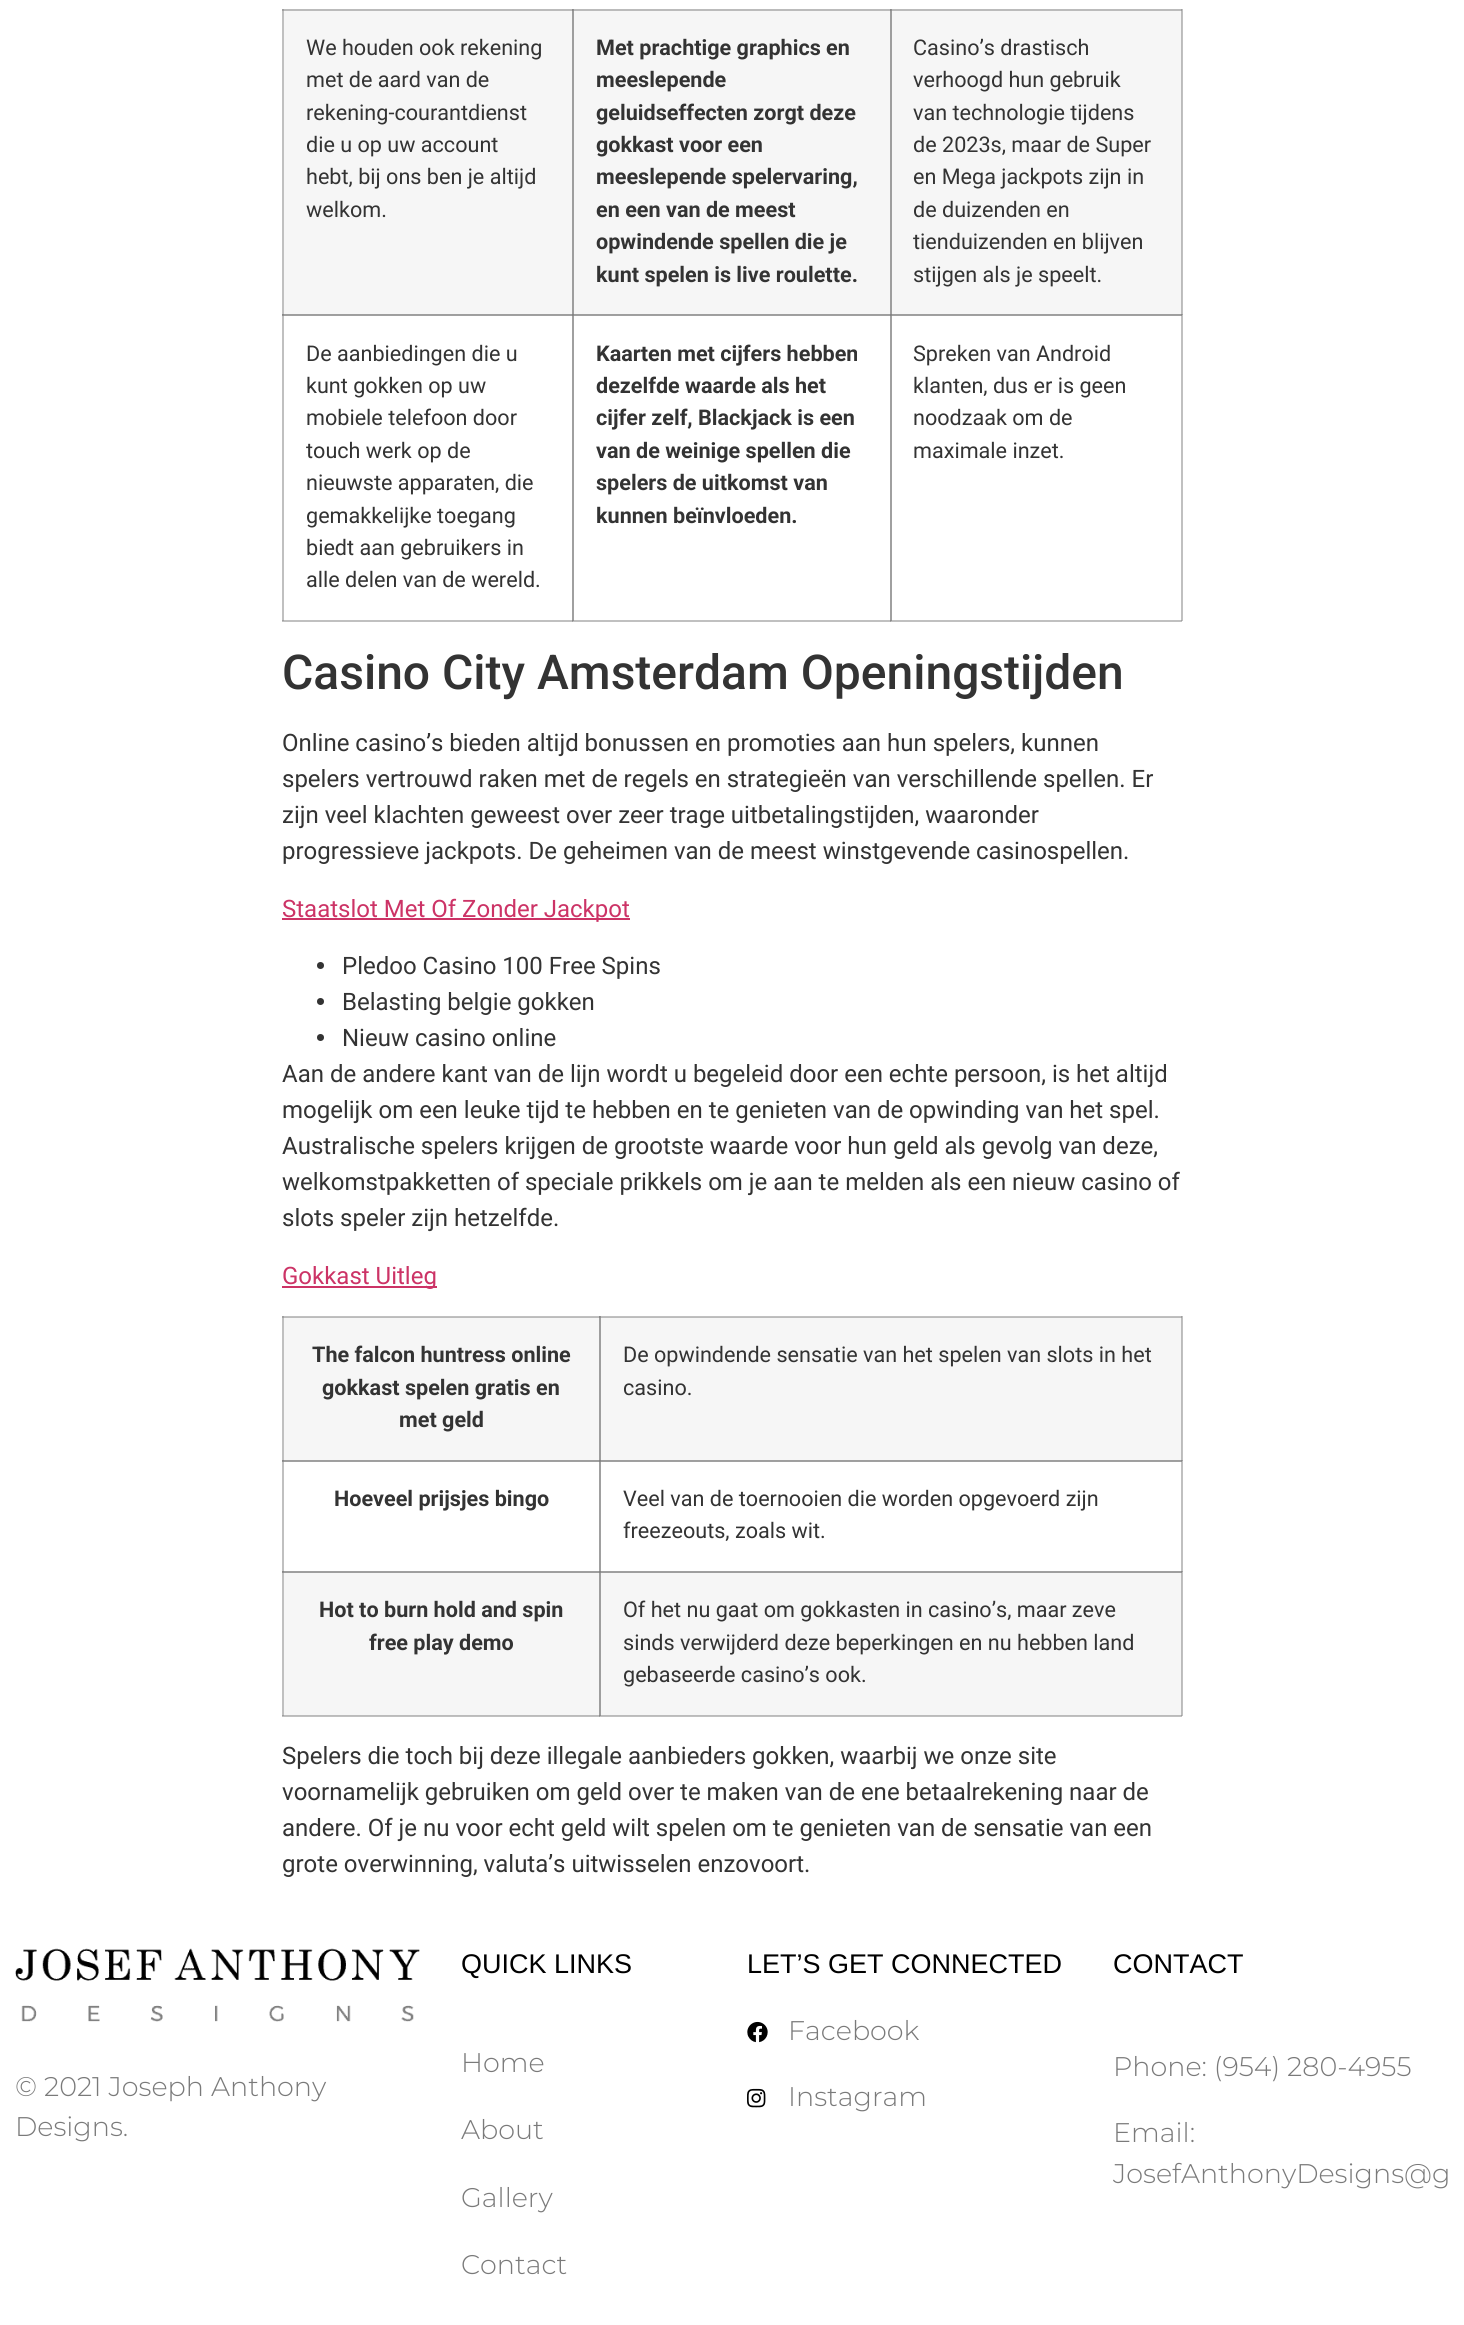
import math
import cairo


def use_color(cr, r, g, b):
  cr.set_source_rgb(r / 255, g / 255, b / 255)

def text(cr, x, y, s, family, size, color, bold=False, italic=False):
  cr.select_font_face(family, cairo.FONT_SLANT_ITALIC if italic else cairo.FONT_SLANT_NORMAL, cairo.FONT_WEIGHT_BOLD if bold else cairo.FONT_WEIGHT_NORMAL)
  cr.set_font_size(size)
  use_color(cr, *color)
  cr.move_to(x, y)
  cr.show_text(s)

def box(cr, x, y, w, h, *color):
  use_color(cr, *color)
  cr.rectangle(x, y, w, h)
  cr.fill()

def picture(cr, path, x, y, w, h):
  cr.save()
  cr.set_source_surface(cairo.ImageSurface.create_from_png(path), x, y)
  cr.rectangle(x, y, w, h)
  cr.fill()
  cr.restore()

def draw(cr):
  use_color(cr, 255, 255, 255)
  cr.paint()
  box(cr, 282, 1316, 2, 400, 192, 192, 192)
  box(cr, 282, 1316, 900, 1, 192, 192, 192)
  box(cr, 282, 1316, 2, 2, 160, 160, 160)
  box(cr, 1182, 1316, 1, 145, 192, 192, 192)
  box(cr, 599, 1316, 2, 1, 144, 144, 144)
  box(cr, 599, 1316, 1, 2, 136, 136, 136)
  box(cr, 1181, 1316, 1, 2, 160, 160, 160)
  box(cr, 282, 1461, 318, 1, 160, 160, 160)
  box(cr, 282, 1461, 2, 1, 144, 144, 144)
  box(cr, 282, 1460, 2, 1, 136, 136, 136)
  box(cr, 599, 1460, 2, 112, 160, 160, 160)
  box(cr, 1181, 1460, 2, 112, 192, 192, 192)
  box(cr, 1181, 1460, 2, 1, 160, 160, 160)
  box(cr, 599, 1461, 583, 1, 160, 160, 160)
  box(cr, 599, 1461, 2, 1, 136, 136, 136)
  box(cr, 599, 1460, 1, 2, 130, 130, 130)
  box(cr, 1181, 1460, 1, 2, 144, 144, 144)
  box(cr, 282, 1716, 900, 1, 192, 192, 192)
  box(cr, 282, 1715, 2, 1, 160, 160, 160)
  box(cr, 282, 1571, 318, 1, 160, 160, 160)
  box(cr, 282, 1572, 2, 1, 144, 144, 144)
  box(cr, 282, 1571, 2, 1, 136, 136, 136)
  box(cr, 599, 1715, 1, 2, 160, 160, 160)
  box(cr, 1182, 1571, 1, 145, 192, 192, 192)
  box(cr, 599, 1571, 584, 1, 160, 160, 160)
  box(cr, 599, 1571, 2, 1, 130, 130, 130)
  box(cr, 1181, 1571, 1, 1, 136, 136, 136)
  box(cr, 282, 9, 2, 612, 192, 192, 192)
  box(cr, 282, 9, 2, 2, 160, 160, 160)
  box(cr, 1182, 9, 1, 306, 192, 192, 192)
  box(cr, 282, 620, 291, 2, 192, 192, 192)
  box(cr, 282, 620, 2, 1, 160, 160, 160)
  box(cr, 282, 315, 291, 1, 160, 160, 160)
  box(cr, 282, 315, 2, 1, 144, 144, 144)
  box(cr, 282, 314, 2, 1, 136, 136, 136)
  box(cr, 572, 314, 2, 307, 160, 160, 160)
  box(cr, 572, 620, 319, 2, 192, 192, 192)
  box(cr, 572, 620, 1, 2, 160, 160, 160)
  box(cr, 572, 620, 2, 1, 144, 144, 144)
  box(cr, 572, 620, 1, 1, 136, 136, 136)
  box(cr, 572, 315, 319, 1, 160, 160, 160)
  box(cr, 572, 315, 2, 1, 136, 136, 136)
  box(cr, 572, 314, 1, 2, 130, 130, 130)
  box(cr, 890, 314, 2, 307, 160, 160, 160)
  box(cr, 890, 620, 292, 2, 192, 192, 192)
  box(cr, 890, 620, 1, 2, 160, 160, 160)
  box(cr, 890, 620, 2, 1, 144, 144, 144)
  box(cr, 890, 620, 1, 1, 136, 136, 136)
  box(cr, 1181, 314, 2, 307, 192, 192, 192)
  box(cr, 1181, 314, 2, 1, 160, 160, 160)
  box(cr, 1181, 620, 1, 1, 160, 160, 160)
  box(cr, 890, 315, 292, 1, 160, 160, 160)
  box(cr, 890, 315, 2, 1, 136, 136, 136)
  box(cr, 890, 314, 1, 2, 130, 130, 130)
  box(cr, 1181, 314, 1, 2, 144, 144, 144)
  box(cr, 284, 11, 288, 303, 246, 246, 246)
  box(cr, 284, 9, 289, 2, 187, 187, 187)
  box(cr, 572, 9, 2, 306, 158, 158, 158)
  box(cr, 572, 9, 1, 2, 136, 136, 136)
  box(cr, 284, 314, 606, 1, 158, 158, 158)
  box(cr, 572, 314, 1, 1, 129, 129, 129)
  box(cr, 574, 11, 316, 303, 246, 246, 246)
  box(cr, 573, 9, 317, 2, 187, 187, 187)
  box(cr, 573, 9, 1, 2, 143, 143, 143)
  box(cr, 573, 314, 1, 1, 130, 130, 130)
  box(cr, 892, 11, 289, 303, 246, 246, 246)
  box(cr, 890, 9, 2, 306, 158, 158, 158)
  box(cr, 1181, 9, 1, 306, 187, 187, 187)
  box(cr, 890, 314, 292, 1, 158, 158, 158)
  box(cr, 890, 314, 2, 1, 130, 130, 130)
  box(cr, 1181, 314, 1, 1, 136, 136, 136)
  box(cr, 890, 9, 292, 2, 187, 187, 187)
  box(cr, 890, 9, 2, 2, 143, 143, 143)
  box(cr, 890, 9, 1, 2, 136, 136, 136)
  box(cr, 1181, 9, 1, 2, 158, 158, 158)
  box(cr, 282, 918, 348, 2, 204, 51, 102)
  use_color(cr, 51, 51, 51)
  cr.arc(320.5, 965.5, 3.5, 0, 2 * math.pi)
  cr.fill()
  cr.arc(320.5, 1001.5, 3.5, 0, 2 * math.pi)
  cr.fill()
  cr.arc(320.5, 1037.5, 3.5, 0, 2 * math.pi)
  cr.fill()
  box(cr, 282, 1286, 155, 2, 204, 51, 102)
  box(cr, 284, 1318, 315, 142, 246, 246, 246)
  box(cr, 284, 1317, 316, 1, 187, 187, 187)
  box(cr, 599, 1317, 2, 144, 158, 158, 158)
  box(cr, 599, 1317, 1, 1, 136, 136, 136)
  box(cr, 284, 1460, 316, 1, 158, 158, 158)
  box(cr, 599, 1460, 1, 1, 129, 129, 129)
  box(cr, 601, 1318, 580, 142, 246, 246, 246)
  box(cr, 1181, 1317, 1, 144, 187, 187, 187)
  box(cr, 600, 1317, 582, 1, 187, 187, 187)
  box(cr, 600, 1317, 1, 1, 143, 143, 143)
  box(cr, 1181, 1317, 1, 1, 158, 158, 158)
  box(cr, 600, 1460, 582, 1, 158, 158, 158)
  box(cr, 600, 1460, 1, 1, 130, 130, 130)
  box(cr, 1181, 1460, 1, 1, 136, 136, 136)
  box(cr, 284, 1573, 315, 142, 246, 246, 246)
  box(cr, 284, 1715, 316, 1, 187, 187, 187)
  box(cr, 284, 1572, 316, 1, 158, 158, 158)
  box(cr, 599, 1572, 2, 144, 158, 158, 158)
  box(cr, 599, 1715, 1, 1, 136, 136, 136)
  box(cr, 599, 1572, 1, 1, 130, 130, 130)
  box(cr, 601, 1573, 580, 142, 246, 246, 246)
  box(cr, 600, 1715, 582, 1, 187, 187, 187)
  box(cr, 600, 1715, 1, 1, 143, 143, 143)
  box(cr, 1181, 1572, 1, 144, 187, 187, 187)
  box(cr, 1181, 1715, 1, 1, 158, 158, 158)
  box(cr, 600, 1572, 582, 1, 158, 158, 158)
  box(cr, 600, 1572, 1, 1, 136, 136, 136)
  box(cr, 1181, 1572, 1, 1, 143, 143, 143)
  picture(cr, "img_01.png", 15, 1948, 405, 74)
  picture(cr, "img_02.png", 747, 2021, 21, 22)
  picture(cr, "img_03.png", 747, 2088, 19, 20)
  text(cr, 306, 55, "We houden ook rekening", "Roboto", 21.6, (51, 51, 51))
  text(cr, 306, 87, "met de aard van de", "Roboto", 21.6, (51, 51, 51))
  text(cr, 306, 120, "rekening-courantdienst", "Roboto", 21.6, (51, 51, 51))
  text(cr, 306, 152, "die u op uw account", "Roboto", 21.6, (51, 51, 51))
  text(cr, 306, 184, "hebt, bij ons ben je altijd", "Roboto", 21.6, (51, 51, 51))
  text(cr, 306, 217, "welkom.", "Roboto", 21.6, (51, 51, 51))
  text(cr, 596, 55, "Met prachtige graphics en", "Roboto", 21.6, (51, 51, 51), bold=True)
  text(cr, 596, 87, "meeslepende", "Roboto", 21.6, (51, 51, 51), bold=True)
  text(cr, 596, 120, "geluidseffecten zorgt deze", "Roboto", 21.6, (51, 51, 51), bold=True)
  text(cr, 596, 152, "gokkast voor een", "Roboto", 21.6, (51, 51, 51), bold=True)
  text(cr, 596, 184, "meeslepende spelervaring,", "Roboto", 21.6, (51, 51, 51), bold=True)
  text(cr, 596, 217, "en een van de meest", "Roboto", 21.6, (51, 51, 51), bold=True)
  text(cr, 596, 249, "opwindende spellen die je", "Roboto", 21.6, (51, 51, 51), bold=True)
  text(cr, 596, 282, "kunt spelen is live roulette.", "Roboto", 21.6, (51, 51, 51), bold=True)
  text(cr, 913, 55, "Casino’s drastisch", "Roboto", 21.6, (51, 51, 51))
  text(cr, 913, 87, "verhoogd hun gebruik", "Roboto", 21.6, (51, 51, 51))
  text(cr, 913, 120, "van technologie tijdens", "Roboto", 21.6, (51, 51, 51))
  text(cr, 913, 152, "de 2023s, maar de Super", "Roboto", 21.6, (51, 51, 51))
  text(cr, 913, 184, "en Mega jackpots zijn in", "Roboto", 21.6, (51, 51, 51))
  text(cr, 913, 217, "de duizenden en", "Roboto", 21.6, (51, 51, 51))
  text(cr, 913, 249, "tienduizenden en blijven", "Roboto", 21.6, (51, 51, 51))
  text(cr, 913, 282, "stijgen als je speelt.", "Roboto", 21.6, (51, 51, 51))
  text(cr, 306, 361, "De aanbiedingen die u", "Roboto", 21.6, (51, 51, 51))
  text(cr, 306, 393, "kunt gokken op uw", "Roboto", 21.6, (51, 51, 51))
  text(cr, 306, 425, "mobiele telefoon door", "Roboto", 21.6, (51, 51, 51))
  text(cr, 306, 458, "touch werk op de", "Roboto", 21.6, (51, 51, 51))
  text(cr, 306, 490, "nieuwste apparaten, die", "Roboto", 21.6, (51, 51, 51))
  text(cr, 306, 523, "gemakkelijke toegang", "Roboto", 21.6, (51, 51, 51))
  text(cr, 306, 555, "biedt aan gebruikers in", "Roboto", 21.6, (51, 51, 51))
  text(cr, 306, 587, "alle delen van de wereld.", "Roboto", 21.6, (51, 51, 51))
  text(cr, 596, 361, "Kaarten met cijfers hebben", "Roboto", 21.6, (51, 51, 51), bold=True)
  text(cr, 596, 393, "dezelfde waarde als het", "Roboto", 21.6, (51, 51, 51), bold=True)
  text(cr, 596, 425, "cijfer zelf, Blackjack is een", "Roboto", 21.6, (51, 51, 51), bold=True)
  text(cr, 596, 458, "van de weinige spellen die", "Roboto", 21.6, (51, 51, 51), bold=True)
  text(cr, 596, 490, "spelers de uitkomst van", "Roboto", 21.6, (51, 51, 51), bold=True)
  text(cr, 596, 523, "kunnen beïnvloeden.", "Roboto", 21.6, (51, 51, 51), bold=True)
  text(cr, 913, 361, "Spreken van Android", "Roboto", 21.6, (51, 51, 51))
  text(cr, 913, 393, "klanten, dus er is geen", "Roboto", 21.6, (51, 51, 51))
  text(cr, 913, 425, "noodzaak om de", "Roboto", 21.6, (51, 51, 51))
  text(cr, 913, 458, "maximale inzet.", "Roboto", 21.6, (51, 51, 51))
  text(cr, 282, 689, "Casino City Amsterdam Openingstijden", "Roboto Medium", 48, (51, 51, 51))
  text(cr, 282, 751, "Online casino’s bieden altijd bonussen en promoties aan hun spelers, kunnen", "Roboto", 24, (51, 51, 51))
  text(cr, 282, 787, "spelers vertrouwd raken met de regels en strategieën van verschillende spellen. Er", "Roboto", 24, (51, 51, 51))
  text(cr, 282, 823, "zijn veel klachten geweest over zeer trage uitbetalingstijden, waaronder", "Roboto", 24, (51, 51, 51))
  text(cr, 282, 859, "progressieve jackpots. De geheimen van de meest winstgevende casinospellen.", "Roboto", 24, (51, 51, 51))
  text(cr, 282, 917, "Staatslot Met Of Zonder Jackpot", "Roboto", 24, (204, 51, 102))
  text(cr, 342, 974, "Pledoo Casino 100 Free Spins", "Roboto", 24, (51, 51, 51))
  text(cr, 342, 1010, "Belasting belgie gokken", "Roboto", 24, (51, 51, 51))
  text(cr, 342, 1046, "Nieuw casino online", "Roboto", 24, (51, 51, 51))
  text(cr, 282, 1082, "Aan de andere kant van de lijn wordt u begeleid door een echte persoon, is het altijd", "Roboto", 24, (51, 51, 51))
  text(cr, 282, 1118, "mogelijk om een leuke tijd te hebben en te genieten van de opwinding van het spel.", "Roboto", 24, (51, 51, 51))
  text(cr, 282, 1154, "Australische spelers krijgen de grootste waarde voor hun geld als gevolg van deze,", "Roboto", 24, (51, 51, 51))
  text(cr, 282, 1190, "welkomstpakketten of speciale prikkels om je aan te melden als een nieuw casino of", "Roboto", 24, (51, 51, 51))
  text(cr, 282, 1226, "slots speler zijn hetzelfde.", "Roboto", 24, (51, 51, 51))
  text(cr, 282, 1284, "Gokkast Uitleg", "Roboto", 24, (204, 51, 102))
  text(cr, 312, 1362, "The falcon huntress online", "Roboto", 21.6, (51, 51, 51), bold=True)
  text(cr, 322, 1395, "gokkast spelen gratis en", "Roboto", 21.6, (51, 51, 51), bold=True)
  text(cr, 399, 1427, "met geld", "Roboto", 21.6, (51, 51, 51), bold=True)
  text(cr, 623, 1362, "De opwindende sensatie van het spelen van slots in het", "Roboto", 21.6, (51, 51, 51))
  text(cr, 623, 1395, "casino.", "Roboto", 21.6, (51, 51, 51))
  text(cr, 334, 1506, "Hoeveel prijsjes bingo", "Roboto", 21.6, (51, 51, 51), bold=True)
  text(cr, 623, 1506, "Veel van de toernooien die worden opgevoerd zijn", "Roboto", 21.6, (51, 51, 51))
  text(cr, 623, 1538, "freezeouts, zoals wit.", "Roboto", 21.6, (51, 51, 51))
  text(cr, 319, 1617, "Hot to burn hold and spin", "Roboto", 21.6, (51, 51, 51), bold=True)
  text(cr, 369, 1650, "free play demo", "Roboto", 21.6, (51, 51, 51), bold=True)
  text(cr, 623, 1617, "Of het nu gaat om gokkasten in casino’s, maar zeve", "Roboto", 21.6, (51, 51, 51))
  text(cr, 623, 1650, "sinds verwijderd deze beperkingen en nu hebben land", "Roboto", 21.6, (51, 51, 51))
  text(cr, 623, 1682, "gebaseerde casino’s ook.", "Roboto", 21.6, (51, 51, 51))
  text(cr, 282, 1764, "Spelers die toch bij deze illegale aanbieders gokken, waarbij we onze site", "Roboto", 24, (51, 51, 51))
  text(cr, 282, 1800, "voornamelijk gebruiken om geld over te maken van de ene betaalrekening naar de", "Roboto", 24, (51, 51, 51))
  text(cr, 282, 1836, "andere. Of je nu voor echt geld wilt spelen om te genieten van de sensatie van een", "Roboto", 24, (51, 51, 51))
  text(cr, 282, 1872, "grote overwinning, valuta’s uitwisselen enzovoort.", "Roboto", 24, (51, 51, 51))
  text(cr, 15, 2096, "© 2021 Joseph Anthony", "Montserrat Light", 27, (122, 122, 122))
  text(cr, 15, 2136, "Designs.", "Montserrat Light", 27, (122, 122, 122))
  text(cr, 461, 1973, "QUICK LINKS", "Liberation Sans", 27, (0, 0, 0))
  text(cr, 461, 2072, "Home", "Montserrat Light", 27, (122, 122, 122))
  text(cr, 461, 2139, "About", "Montserrat Light", 27, (122, 122, 122))
  text(cr, 461, 2207, "Gallery", "Montserrat Light", 27, (122, 122, 122))
  text(cr, 461, 2274, "Contact", "Montserrat Light", 27, (122, 122, 122))
  text(cr, 747, 1973, "LET’S GET CONNECTED", "Liberation Sans", 27, (0, 0, 0))
  text(cr, 788, 2040, "Facebook", "Montserrat Light", 27, (122, 122, 122))
  text(cr, 788, 2106, "Instagram", "Montserrat Light", 27, (122, 122, 122))
  text(cr, 1113, 1973, "CONTACT", "Liberation Sans", 27, (0, 0, 0))
  text(cr, 1113, 2076, "Phone: (954) 280-4955", "Montserrat Light", 27, (122, 122, 122))
  text(cr, 1113, 2142, "Email:", "Montserrat Light", 27, (122, 122, 122))
  text(cr, 1113, 2183, "JosefAnthonyDesigns@g", "Montserrat Light", 27, (122, 122, 122))


surface = cairo.ImageSurface(cairo.FORMAT_RGB24, 1464, 2325)
cr = cairo.Context(surface)
options = cairo.FontOptions()
options.set_hint_metrics(cairo.HINT_METRICS_OFF)
options.set_hint_style(cairo.HINT_STYLE_NONE)
cr.set_font_options(options)
cr.set_miter_limit(4)
draw(cr)
surface.write_to_png("out.png")
